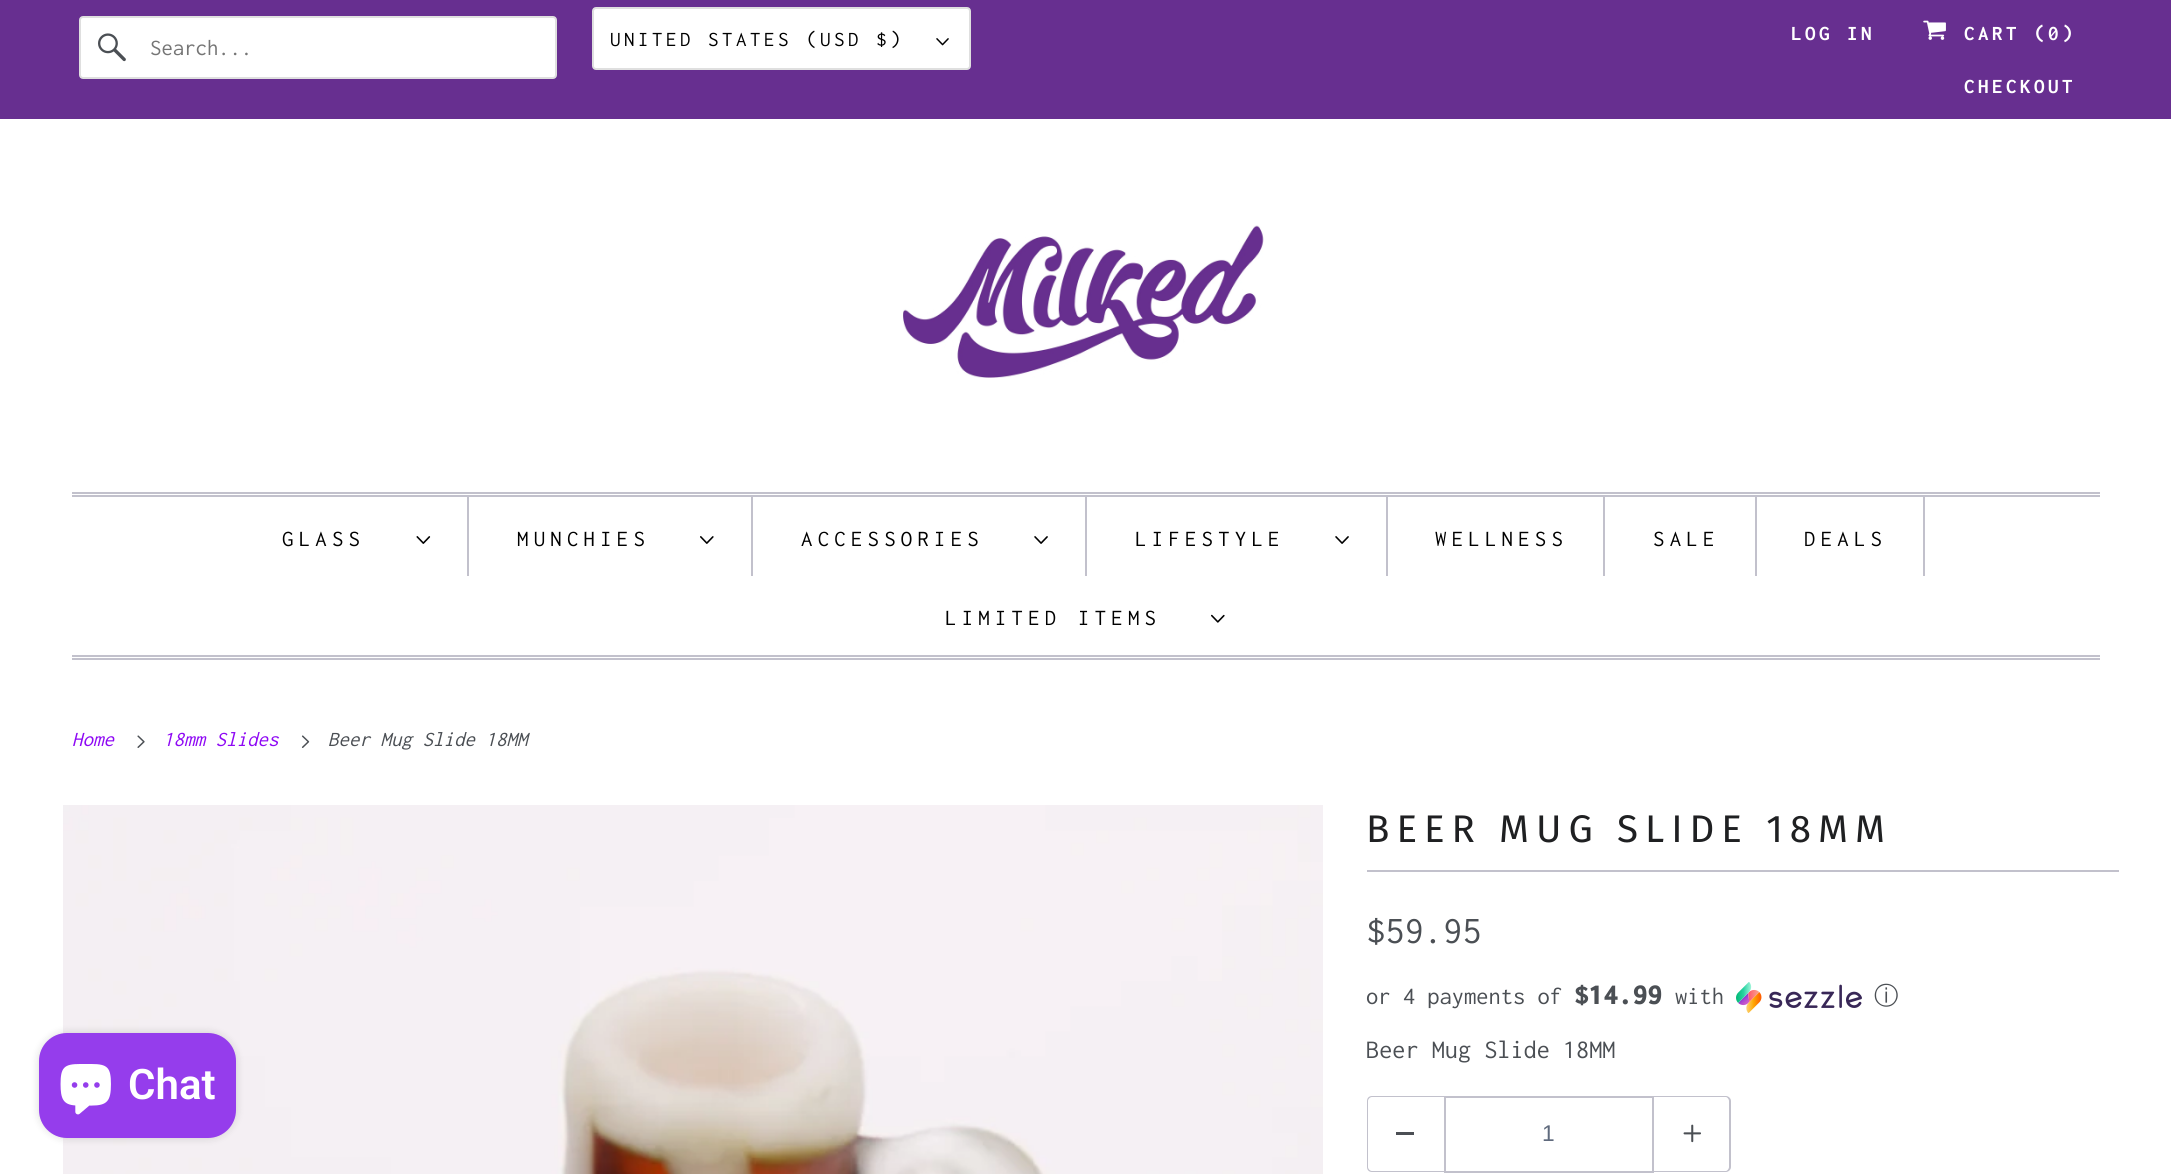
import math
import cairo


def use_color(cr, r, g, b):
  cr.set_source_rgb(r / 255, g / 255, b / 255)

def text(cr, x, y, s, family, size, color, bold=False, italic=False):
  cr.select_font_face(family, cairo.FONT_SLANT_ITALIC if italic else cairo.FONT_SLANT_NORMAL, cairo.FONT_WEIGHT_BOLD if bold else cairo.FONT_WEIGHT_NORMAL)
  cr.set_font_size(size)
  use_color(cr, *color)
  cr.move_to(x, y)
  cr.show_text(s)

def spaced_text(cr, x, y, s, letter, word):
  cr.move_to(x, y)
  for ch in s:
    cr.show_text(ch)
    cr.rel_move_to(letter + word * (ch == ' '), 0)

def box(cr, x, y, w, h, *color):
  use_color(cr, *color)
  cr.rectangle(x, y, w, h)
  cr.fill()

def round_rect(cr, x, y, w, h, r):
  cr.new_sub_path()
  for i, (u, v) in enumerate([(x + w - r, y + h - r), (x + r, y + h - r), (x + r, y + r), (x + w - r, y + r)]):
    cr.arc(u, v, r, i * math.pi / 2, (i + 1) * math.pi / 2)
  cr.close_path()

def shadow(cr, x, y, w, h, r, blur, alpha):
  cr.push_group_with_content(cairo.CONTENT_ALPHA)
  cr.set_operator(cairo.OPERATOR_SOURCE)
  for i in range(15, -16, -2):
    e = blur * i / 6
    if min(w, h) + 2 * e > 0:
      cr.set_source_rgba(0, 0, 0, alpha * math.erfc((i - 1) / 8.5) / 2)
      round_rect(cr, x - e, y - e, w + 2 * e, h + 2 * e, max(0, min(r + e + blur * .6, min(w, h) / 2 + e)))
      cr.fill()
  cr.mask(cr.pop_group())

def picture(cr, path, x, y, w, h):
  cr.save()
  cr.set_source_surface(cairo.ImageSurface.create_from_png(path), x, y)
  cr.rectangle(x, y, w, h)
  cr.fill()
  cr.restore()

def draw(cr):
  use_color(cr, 255, 255, 255)
  cr.paint()
  box(cr, 0, 0, 2171, 119, 103, 47, 144)
  use_color(cr, 255, 255, 255)
  round_rect(cr, 80, 17, 476, 61, 3)
  cr.fill_preserve()
  use_color(cr, 223, 223, 223)
  cr.stroke()
  picture(cr, "img_01.png", 98, 33, 28, 29)
  use_color(cr, 255, 255, 255)
  round_rect(cr, 593, 8, 377, 61, 3)
  cr.fill_preserve()
  use_color(cr, 223, 223, 223)
  cr.stroke()
  picture(cr, "img_02.png", 936, 38, 13, 8)
  picture(cr, "img_03.png", 1923, 20, 23, 20)
  picture(cr, "img_04.png", 903, 225, 361, 153)
  box(cr, 72, 492, 2028, 2, 194, 193, 204)
  box(cr, 72, 495, 2028, 2, 194, 193, 204)
  box(cr, 72, 655, 2028, 2, 194, 193, 204)
  box(cr, 72, 658, 2028, 2, 194, 193, 204)
  box(cr, 467, 497, 2, 79, 194, 193, 204)
  picture(cr, "img_05.png", 416, 536, 15, 8)
  box(cr, 751, 497, 2, 79, 194, 193, 204)
  picture(cr, "img_06.png", 700, 536, 14, 8)
  box(cr, 1085, 497, 2, 79, 194, 193, 204)
  picture(cr, "img_07.png", 1034, 536, 14, 8)
  box(cr, 1386, 497, 2, 79, 194, 193, 204)
  picture(cr, "img_07.png", 1335, 536, 14, 8)
  box(cr, 1603, 497, 2, 79, 194, 193, 204)
  box(cr, 1755, 497, 2, 79, 194, 193, 204)
  box(cr, 1923, 497, 2, 79, 194, 193, 204)
  picture(cr, "img_08.png", 1211, 614, 14, 9)
  picture(cr, "img_09.png", 137, 735, 8, 13)
  picture(cr, "img_10.png", 301, 735, 9, 13)
  picture(cr, "img_12.png", 63, 805, 1260, 369)
  use_color(cr, 0, 0, 0)
  shadow(cr, 39, 1033, 197, 105, 28, 4.5, 0.15)
  use_color(cr, 149, 61, 236)
  round_rect(cr, 39, 1033, 197, 105, 28)
  cr.fill()
  picture(cr, "img_11.png", 60, 1064, 51, 51)
  box(cr, 1367, 870, 752, 2, 194, 193, 204)
  picture(cr, "img_13.png", 1736, 982, 126, 31)
  cr.set_fill_rule(cairo.FILL_RULE_EVEN_ODD)
  cr.new_path()
  cr.move_to(1372, 1096)
  cr.line_to(1444, 1096)
  cr.line_to(1444, 1172)
  cr.line_to(1372, 1172)
  cr.curve_to(1369, 1172, 1367, 1170, 1367, 1167)
  cr.line_to(1367, 1101)
  cr.curve_to(1367, 1098, 1369, 1096, 1372, 1096)
  cr.close_path()
  cr.move_to(1372, 1097)
  cr.line_to(1444, 1097)
  cr.line_to(1444, 1171)
  cr.line_to(1372, 1171)
  cr.curve_to(1370, 1171, 1368, 1169, 1368, 1167)
  cr.line_to(1368, 1101)
  cr.curve_to(1368, 1099, 1370, 1097, 1372, 1097)
  cr.close_path()
  cr.fill()
  box(cr, 1396, 1132, 18, 3, 75, 79, 84)
  cr.rectangle(1445, 1097, 208, 75)
  use_color(cr, 194, 193, 204)
  cr.stroke()
  cr.new_path()
  cr.move_to(1654, 1096)
  cr.line_to(1726, 1096)
  cr.curve_to(1728, 1096, 1731, 1098, 1731, 1101)
  cr.line_to(1731, 1167)
  cr.curve_to(1731, 1170, 1728, 1172, 1726, 1172)
  cr.line_to(1654, 1172)
  cr.close_path()
  cr.move_to(1654, 1097)
  cr.line_to(1726, 1097)
  cr.curve_to(1727, 1097, 1729, 1099, 1729, 1101)
  cr.line_to(1729, 1167)
  cr.curve_to(1729, 1169, 1727, 1171, 1726, 1171)
  cr.line_to(1654, 1171)
  cr.close_path()
  cr.fill()
  picture(cr, "img_14.png", 1683, 1124, 18, 19)
  text(cr, 150, 55, "Search...", "Inconsolata", 22.75, (117, 117, 117))
  cr.set_font_size(21)
  use_color(cr, 0, 0, 0)
  spaced_text(cr, 610, 46, "UNITED STATES (USD $)", 3.5, 0)
  cr.select_font_face("Inconsolata", cairo.FONT_SLANT_NORMAL, cairo.FONT_WEIGHT_BOLD)
  use_color(cr, 255, 255, 255)
  spaced_text(cr, 1791, 40, "LOG IN", 3.5, 0)
  spaced_text(cr, 1964, 40, "CART (0)", 3.5, 0)
  spaced_text(cr, 1964, 93, "CHECKOUT", 3.5, 0)
  cr.select_font_face("Inconsolata")
  cr.set_font_size(22.75)
  use_color(cr, 0, 0, 0)
  spaced_text(cr, 282, 546, "GLASS", 5.25, 0)
  spaced_text(cr, 517, 546, "MUNCHIES", 5.25, 0)
  spaced_text(cr, 801, 546, "ACCESSORIES", 5.25, 0)
  spaced_text(cr, 1135, 546, "LIFESTYLE", 5.25, 0)
  spaced_text(cr, 1435, 546, "WELLNESS", 5.25, 0)
  spaced_text(cr, 1653, 546, "SALE", 5.25, 0)
  spaced_text(cr, 1804, 546, "DEALS", 5.25, 0)
  spaced_text(cr, 945, 625, "LIMITED ITEMS", 5.25, 0)
  text(cr, 72, 746, "Home", "Inconsolata", 21, (142, 8, 244), italic=True)
  text(cr, 163, 746, "18mm Slides", "Inconsolata", 21, (142, 8, 244), italic=True)
  text(cr, 328, 746, "Beer Mug Slide 18MM", "Inconsolata", 21, (75, 79, 84), italic=True)
  text(cr, 128, 1099, "Chat", "Roboto SemiBold", 42, (255, 255, 255))
  cr.select_font_face("Fira Sans")
  cr.set_font_size(38.5)
  use_color(cr, 31, 32, 34)
  spaced_text(cr, 1366, 842, "BEER MUG SLIDE 18MM", 7, 0)
  text(cr, 1366, 943, "$59.95", "Inconsolata", 38.5, (75, 79, 84))
  text(cr, 1366, 1004, "or 4 payments of", "Inconsolata", 24.5, (75, 79, 84))
  text(cr, 1574, 1004, "$14.99", "Inconsolata Black", 29.5, (75, 79, 84))
  text(cr, 1675, 1004, "with", "Inconsolata", 24.5, (75, 79, 84))
  text(cr, 1874, 1004, "ⓘ", "WenQuanYi Zen Hei Medium", 24.5, (75, 79, 84))
  text(cr, 1366, 1058, "Beer Mug Slide 18MM", "Inconsolata", 26.25, (75, 79, 84))
  text(cr, 1542, 1141, "1", "Liberation Sans", 22.75, (95, 106, 125))


surface = cairo.ImageSurface(cairo.FORMAT_RGB24, 2171, 1174)
cr = cairo.Context(surface)
options = cairo.FontOptions()
options.set_hint_metrics(cairo.HINT_METRICS_OFF)
options.set_hint_style(cairo.HINT_STYLE_NONE)
cr.set_font_options(options)
cr.set_miter_limit(4)
draw(cr)
surface.write_to_png("out.png")
